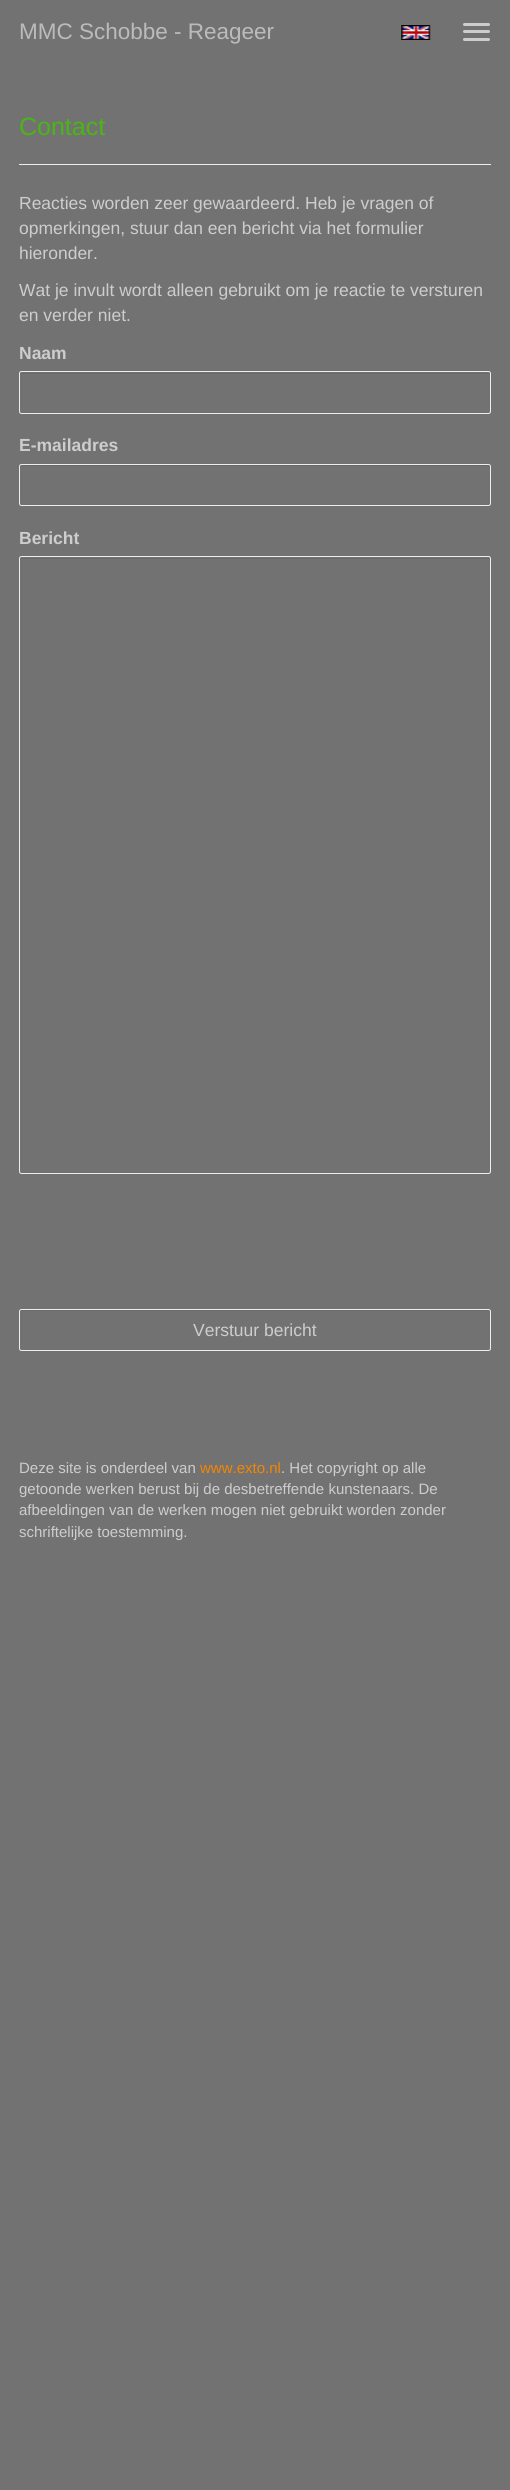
import math
import cairo


def use_color(cr, r, g, b):
  cr.set_source_rgb(r / 255, g / 255, b / 255)

def text(cr, x, y, s, family, size, color, bold=False, italic=False):
  cr.select_font_face(family, cairo.FONT_SLANT_ITALIC if italic else cairo.FONT_SLANT_NORMAL, cairo.FONT_WEIGHT_BOLD if bold else cairo.FONT_WEIGHT_NORMAL)
  cr.set_font_size(size)
  use_color(cr, *color)
  cr.move_to(x, y)
  cr.show_text(s)

def box(cr, x, y, w, h, *color):
  use_color(cr, *color)
  cr.rectangle(x, y, w, h)
  cr.fill()

def round_rect(cr, x, y, w, h, r):
  cr.new_sub_path()
  for i, (u, v) in enumerate([(x + w - r, y + h - r), (x + r, y + h - r), (x + r, y + r), (x + w - r, y + r)]):
    cr.arc(u, v, r, i * math.pi / 2, (i + 1) * math.pi / 2)
  cr.close_path()

def picture(cr, path, x, y, w, h):
  cr.save()
  cr.set_source_surface(cairo.ImageSurface.create_from_png(path), x, y)
  cr.rectangle(x, y, w, h)
  cr.fill()
  cr.restore()

def draw(cr):
  use_color(cr, 114, 114, 114)
  cr.paint()
  use_color(cr, 205, 205, 205)
  round_rect(cr, 463, 23, 27, 3, 1.5)
  cr.fill()
  round_rect(cr, 463, 30, 27, 3, 1.5)
  cr.fill()
  round_rect(cr, 463, 38, 27, 3, 1.5)
  cr.fill()
  picture(cr, "img_01.png", 401, 25, 30, 15)
  box(cr, 19, 164, 472, 1, 238, 238, 238)
  use_color(cr, 105, 105, 105)
  cr.new_path()
  cr.move_to(21, 374)
  cr.line_to(489, 374)
  cr.line_to(490, 375)
  cr.curve_to(490, 374, 490, 373, 489, 373)
  cr.line_to(21, 373)
  cr.line_to(20, 374)
  cr.line_to(20, 375)
  cr.close_path()
  cr.fill()
  round_rect(cr, 19.5, 371.5, 471, 42, 2)
  use_color(cr, 238, 238, 238)
  cr.set_line_width(1)
  cr.stroke()
  use_color(cr, 105, 105, 105)
  cr.new_path()
  cr.move_to(21, 466)
  cr.line_to(489, 466)
  cr.line_to(490, 468)
  cr.line_to(490, 465)
  cr.line_to(489, 465)
  cr.line_to(21, 465)
  cr.curve_to(20, 465, 20, 467, 20, 468)
  cr.close_path()
  cr.fill()
  round_rect(cr, 19.5, 464.5, 471, 41, 2)
  use_color(cr, 238, 238, 238)
  cr.stroke()
  use_color(cr, 105, 105, 105)
  cr.new_path()
  cr.move_to(21, 559)
  cr.line_to(489, 559)
  cr.line_to(490, 560)
  cr.curve_to(490, 559, 490, 558, 489, 558)
  cr.line_to(21, 558)
  cr.line_to(20, 559)
  cr.line_to(20, 560)
  cr.close_path()
  cr.fill()
  round_rect(cr, 19.5, 556.5, 471, 617, 2)
  use_color(cr, 238, 238, 238)
  cr.stroke()
  use_color(cr, 105, 105, 105)
  cr.new_path()
  cr.move_to(21, 1311)
  cr.line_to(489, 1311)
  cr.line_to(490, 1312)
  cr.curve_to(490, 1311, 490, 1310, 489, 1310)
  cr.line_to(21, 1310)
  cr.line_to(20, 1311)
  cr.line_to(20, 1312)
  cr.close_path()
  cr.fill()
  round_rect(cr, 19.5, 1309.5, 471, 41, 2)
  use_color(cr, 238, 238, 238)
  cr.stroke()
  text(cr, 19, 39, "MMC Schobbe - Reageer", "Liberation Sans", 22.5, (187, 187, 187))
  text(cr, 19, 135, "Contact", "Liberation Sans", 25, (74, 182, 20))
  text(cr, 19, 209, "Reacties worden zeer gewaardeerd. Heb je vragen of", "Liberation Sans", 17.5, (205, 205, 205))
  text(cr, 19, 234, "opmerkingen, stuur dan een bericht via het formulier", "Liberation Sans", 17.5, (205, 205, 205))
  text(cr, 19, 259, "hieronder.", "Liberation Sans", 17.5, (205, 205, 205))
  text(cr, 19, 296, "Wat je invult wordt alleen gebruikt om je reactie te versturen", "Liberation Sans", 17.5, (205, 205, 205))
  text(cr, 19, 321, "en verder niet.", "Liberation Sans", 17.5, (205, 205, 205))
  text(cr, 19, 359, "Naam", "Liberation Sans", 17.5, (205, 205, 205), bold=True)
  text(cr, 19, 451, "E-mailadres", "Liberation Sans", 17.5, (205, 205, 205), bold=True)
  text(cr, 19, 544, "Bericht", "Liberation Sans", 17.5, (205, 205, 205), bold=True)
  text(cr, 193, 1336, "Verstuur bericht", "Liberation Sans", 17.5, (205, 205, 205))
  text(cr, 19, 1473, "Deze site is onderdeel van", "Liberation Sans", 15, (205, 205, 205))
  text(cr, 200, 1473, "www.exto.nl", "Liberation Sans", 15, (245, 133, 0))
  text(cr, 281, 1473, ". Het copyright op alle", "Liberation Sans", 15, (205, 205, 205))
  text(cr, 19, 1494, "getoonde werken berust bij de desbetreffende kunstenaars. De", "Liberation Sans", 15, (205, 205, 205))
  text(cr, 19, 1515, "afbeeldingen van de werken mogen niet gebruikt worden zonder", "Liberation Sans", 15, (205, 205, 205))
  text(cr, 19, 1537, "schriftelijke toestemming.", "Liberation Sans", 15, (205, 205, 205))


surface = cairo.ImageSurface(cairo.FORMAT_RGB24, 510, 2490)
cr = cairo.Context(surface)
options = cairo.FontOptions()
options.set_hint_metrics(cairo.HINT_METRICS_OFF)
options.set_hint_style(cairo.HINT_STYLE_NONE)
cr.set_font_options(options)
cr.set_miter_limit(4)
draw(cr)
surface.write_to_png("out.png")
